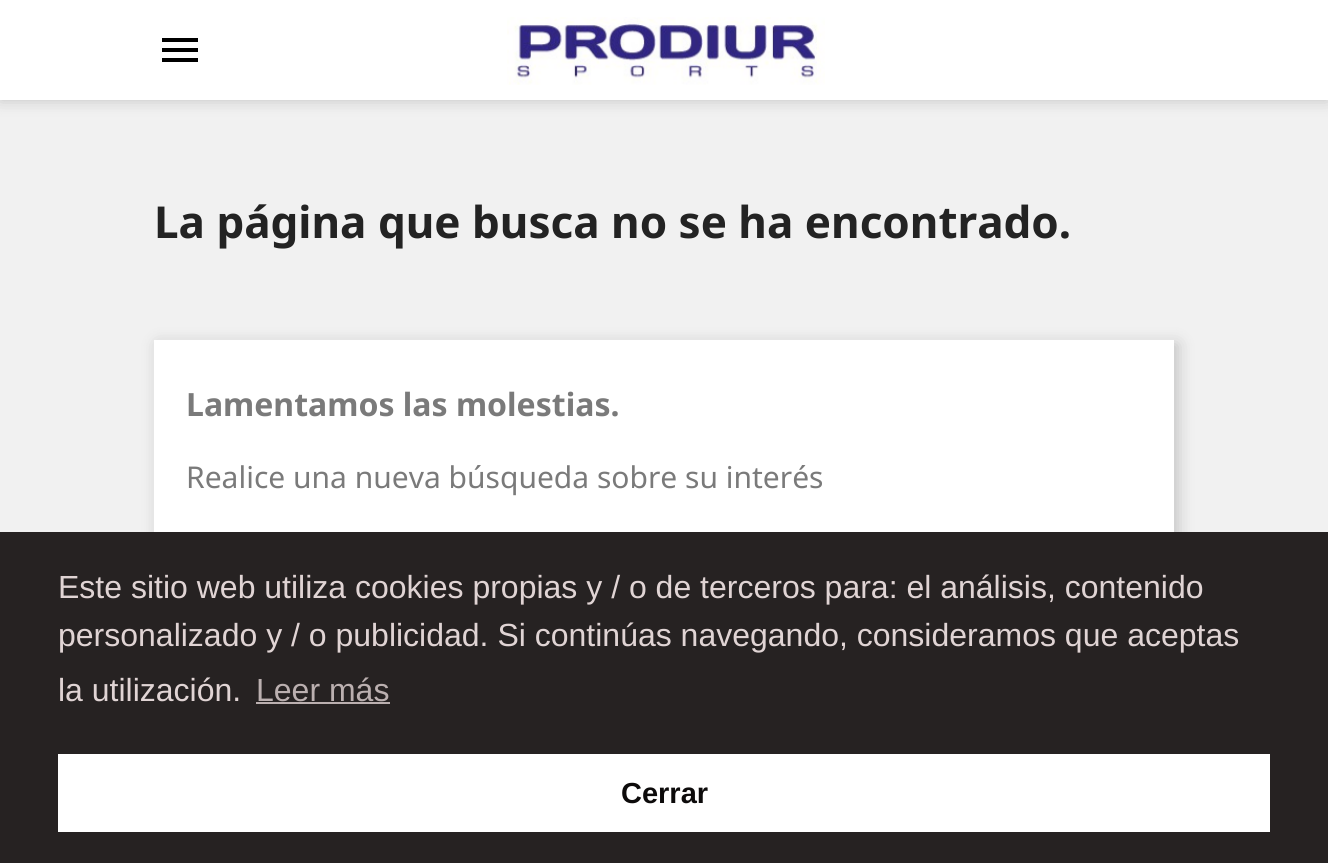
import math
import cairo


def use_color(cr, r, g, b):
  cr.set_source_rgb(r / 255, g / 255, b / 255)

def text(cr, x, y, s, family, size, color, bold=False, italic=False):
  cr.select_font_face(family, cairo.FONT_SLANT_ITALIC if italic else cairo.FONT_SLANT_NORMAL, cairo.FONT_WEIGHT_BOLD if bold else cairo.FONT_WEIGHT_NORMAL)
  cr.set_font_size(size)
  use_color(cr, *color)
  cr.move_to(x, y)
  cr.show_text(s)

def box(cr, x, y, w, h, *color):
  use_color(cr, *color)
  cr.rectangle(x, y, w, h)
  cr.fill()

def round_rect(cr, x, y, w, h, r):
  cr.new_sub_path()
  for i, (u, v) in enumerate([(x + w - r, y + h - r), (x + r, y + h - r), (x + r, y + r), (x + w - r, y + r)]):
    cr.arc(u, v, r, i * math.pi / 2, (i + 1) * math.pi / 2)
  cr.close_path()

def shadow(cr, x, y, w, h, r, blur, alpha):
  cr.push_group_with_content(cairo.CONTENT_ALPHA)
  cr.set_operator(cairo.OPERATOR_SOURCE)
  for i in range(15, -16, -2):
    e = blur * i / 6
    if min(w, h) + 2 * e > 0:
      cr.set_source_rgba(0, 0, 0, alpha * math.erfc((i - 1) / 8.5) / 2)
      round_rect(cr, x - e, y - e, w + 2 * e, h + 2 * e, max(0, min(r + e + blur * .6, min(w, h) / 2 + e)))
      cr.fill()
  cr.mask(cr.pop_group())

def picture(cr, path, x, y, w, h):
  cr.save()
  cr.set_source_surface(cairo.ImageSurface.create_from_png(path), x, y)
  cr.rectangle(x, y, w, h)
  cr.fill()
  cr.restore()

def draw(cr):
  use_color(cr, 241, 241, 241)
  cr.paint()
  use_color(cr, 0, 0, 0)
  shadow(cr, 0, 0, 1328, 100, 0, 8, 0.2)
  box(cr, 0, 0, 1328, 100, 255, 255, 255)
  use_color(cr, 0, 0, 0)
  cr.new_path()
  cr.move_to(162, 38)
  cr.line_to(198, 38)
  cr.line_to(198, 42)
  cr.line_to(162, 42)
  cr.close_path()
  cr.move_to(162, 52)
  cr.line_to(162, 48)
  cr.line_to(198, 48)
  cr.line_to(198, 52)
  cr.close_path()
  cr.move_to(162, 62)
  cr.line_to(162, 58)
  cr.line_to(198, 58)
  cr.line_to(198, 62)
  cr.close_path()
  cr.fill()
  picture(cr, "img_01.png", 507, 17, 318, 68)
  use_color(cr, 0, 0, 0)
  shadow(cr, 158, 344, 1020, 220, 0, 8, 0.2)
  box(cr, 154, 340, 1020, 192, 255, 255, 255)
  box(cr, 0, 532, 1328, 331, 38, 34, 34)
  box(cr, 256, 702, 134, 2, 187, 176, 176)
  box(cr, 58, 754, 1212, 78, 255, 255, 255)
  text(cr, 154, 238, "La página que busca no se ha encontrado.", "Noto Sans", 44, (35, 35, 35), bold=True)
  text(cr, 186, 416, "Lamentamos las molestias.", "Noto Sans", 32, (122, 122, 122), bold=True)
  text(cr, 186, 488, "Realice una nueva búsqueda sobre su interés", "Noto Sans", 30, (122, 122, 122))
  text(cr, 58, 598, "Este sitio web utiliza cookies propias y / o de terceros para: el análisis, contenido", "Liberation Sans", 32, (224, 212, 212))
  text(cr, 58, 646, "personalizado y / o publicidad. Si continúas navegando, consideramos que aceptas", "Liberation Sans", 32, (224, 212, 212))
  text(cr, 58, 701, "la utilización.", "Liberation Sans", 32, (224, 212, 212))
  text(cr, 256, 701, "Leer más", "Liberation Sans", 32, (187, 176, 176))
  text(cr, 621, 803, "Cerrar", "Liberation Sans", 29, (13, 11, 11), bold=True)


surface = cairo.ImageSurface(cairo.FORMAT_RGB24, 1328, 863)
cr = cairo.Context(surface)
options = cairo.FontOptions()
options.set_hint_metrics(cairo.HINT_METRICS_OFF)
options.set_hint_style(cairo.HINT_STYLE_NONE)
cr.set_font_options(options)
cr.set_miter_limit(4)
draw(cr)
surface.write_to_png("out.png")
